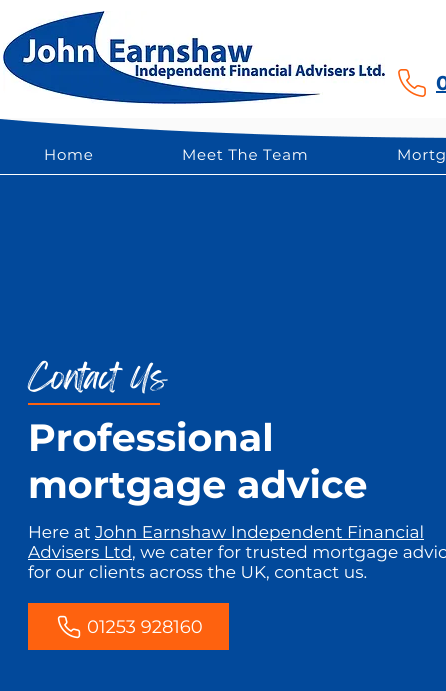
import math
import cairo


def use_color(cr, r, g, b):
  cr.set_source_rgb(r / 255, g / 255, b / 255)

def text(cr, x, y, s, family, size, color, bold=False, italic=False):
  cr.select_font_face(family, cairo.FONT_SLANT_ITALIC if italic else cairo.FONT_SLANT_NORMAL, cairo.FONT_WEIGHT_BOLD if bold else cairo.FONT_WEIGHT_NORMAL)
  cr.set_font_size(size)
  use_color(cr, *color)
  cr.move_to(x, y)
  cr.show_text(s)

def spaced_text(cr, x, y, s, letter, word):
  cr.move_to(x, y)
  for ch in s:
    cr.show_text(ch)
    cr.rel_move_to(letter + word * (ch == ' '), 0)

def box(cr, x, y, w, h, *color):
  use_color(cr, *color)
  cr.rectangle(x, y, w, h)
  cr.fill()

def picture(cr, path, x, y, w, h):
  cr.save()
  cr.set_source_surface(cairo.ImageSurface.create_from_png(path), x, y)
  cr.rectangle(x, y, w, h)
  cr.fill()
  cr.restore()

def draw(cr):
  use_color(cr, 255, 255, 255)
  cr.paint()
  picture(cr, "img_01.png", 3, 11, 382, 93)
  picture(cr, "img_02.png", 398, 69, 28, 28)
  box(cr, 436, 91, 10, 2, 2, 73, 155)
  box(cr, 0, 119, 446, 55, 2, 73, 155)
  use_color(cr, 250, 250, 250)
  cr.new_path()
  cr.move_to(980, 119)
  cr.curve_to(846, 131, 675, 138, 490, 138)
  cr.curve_to(305, 138, 134, 131, 0, 119)
  cr.line_to(0, 118)
  cr.line_to(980, 118)
  cr.close_path()
  cr.fill()
  box(cr, 0, 175, 446, 516, 2, 73, 155)
  box(cr, 28, 403, 132, 2, 254, 98, 15)
  box(cr, 95, 539, 329, 1, 255, 255, 255)
  box(cr, 28, 559, 104, 1, 255, 255, 255)
  box(cr, 28, 603, 201, 47, 254, 98, 15)
  picture(cr, "img_03.png", 57, 615, 24, 24)
  text(cr, 436, 90, "0", "Montserrat", 20, (2, 73, 155), bold=True)
  cr.select_font_face("Montserrat")
  cr.set_font_size(15)
  use_color(cr, 255, 255, 255)
  spaced_text(cr, 44, 160, "Home", 0.75, 0)
  spaced_text(cr, 182, 160, "Meet The Team", 0.75, 0)
  spaced_text(cr, 397, 160, "Mortg", 0.75, 0)
  text(cr, 28, 391, "Contact Us", "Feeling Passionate", 30, (255, 255, 255))
  text(cr, 28, 451, "Professional", "Montserrat", 38, (255, 255, 255), bold=True)
  text(cr, 28, 498, "mortgage advice", "Montserrat", 38, (255, 255, 255), bold=True)
  text(cr, 28, 538, "Here at", "Montserrat", 17, (255, 255, 255))
  text(cr, 95, 538, "John Earnshaw Independent Financial", "Montserrat", 17, (255, 255, 255))
  text(cr, 28, 558, "Advisers Ltd, we cater for trusted mortgage advic", "Montserrat", 17, (255, 255, 255))
  text(cr, 28, 578, "for our clients across the UK, contact us.", "Montserrat", 17, (255, 255, 255))
  text(cr, 87, 633, "01253 928160", "Montserrat", 18, (255, 255, 255))


surface = cairo.ImageSurface(cairo.FORMAT_RGB24, 446, 691)
cr = cairo.Context(surface)
options = cairo.FontOptions()
options.set_hint_metrics(cairo.HINT_METRICS_OFF)
options.set_hint_style(cairo.HINT_STYLE_NONE)
cr.set_font_options(options)
cr.set_miter_limit(4)
draw(cr)
surface.write_to_png("out.png")
